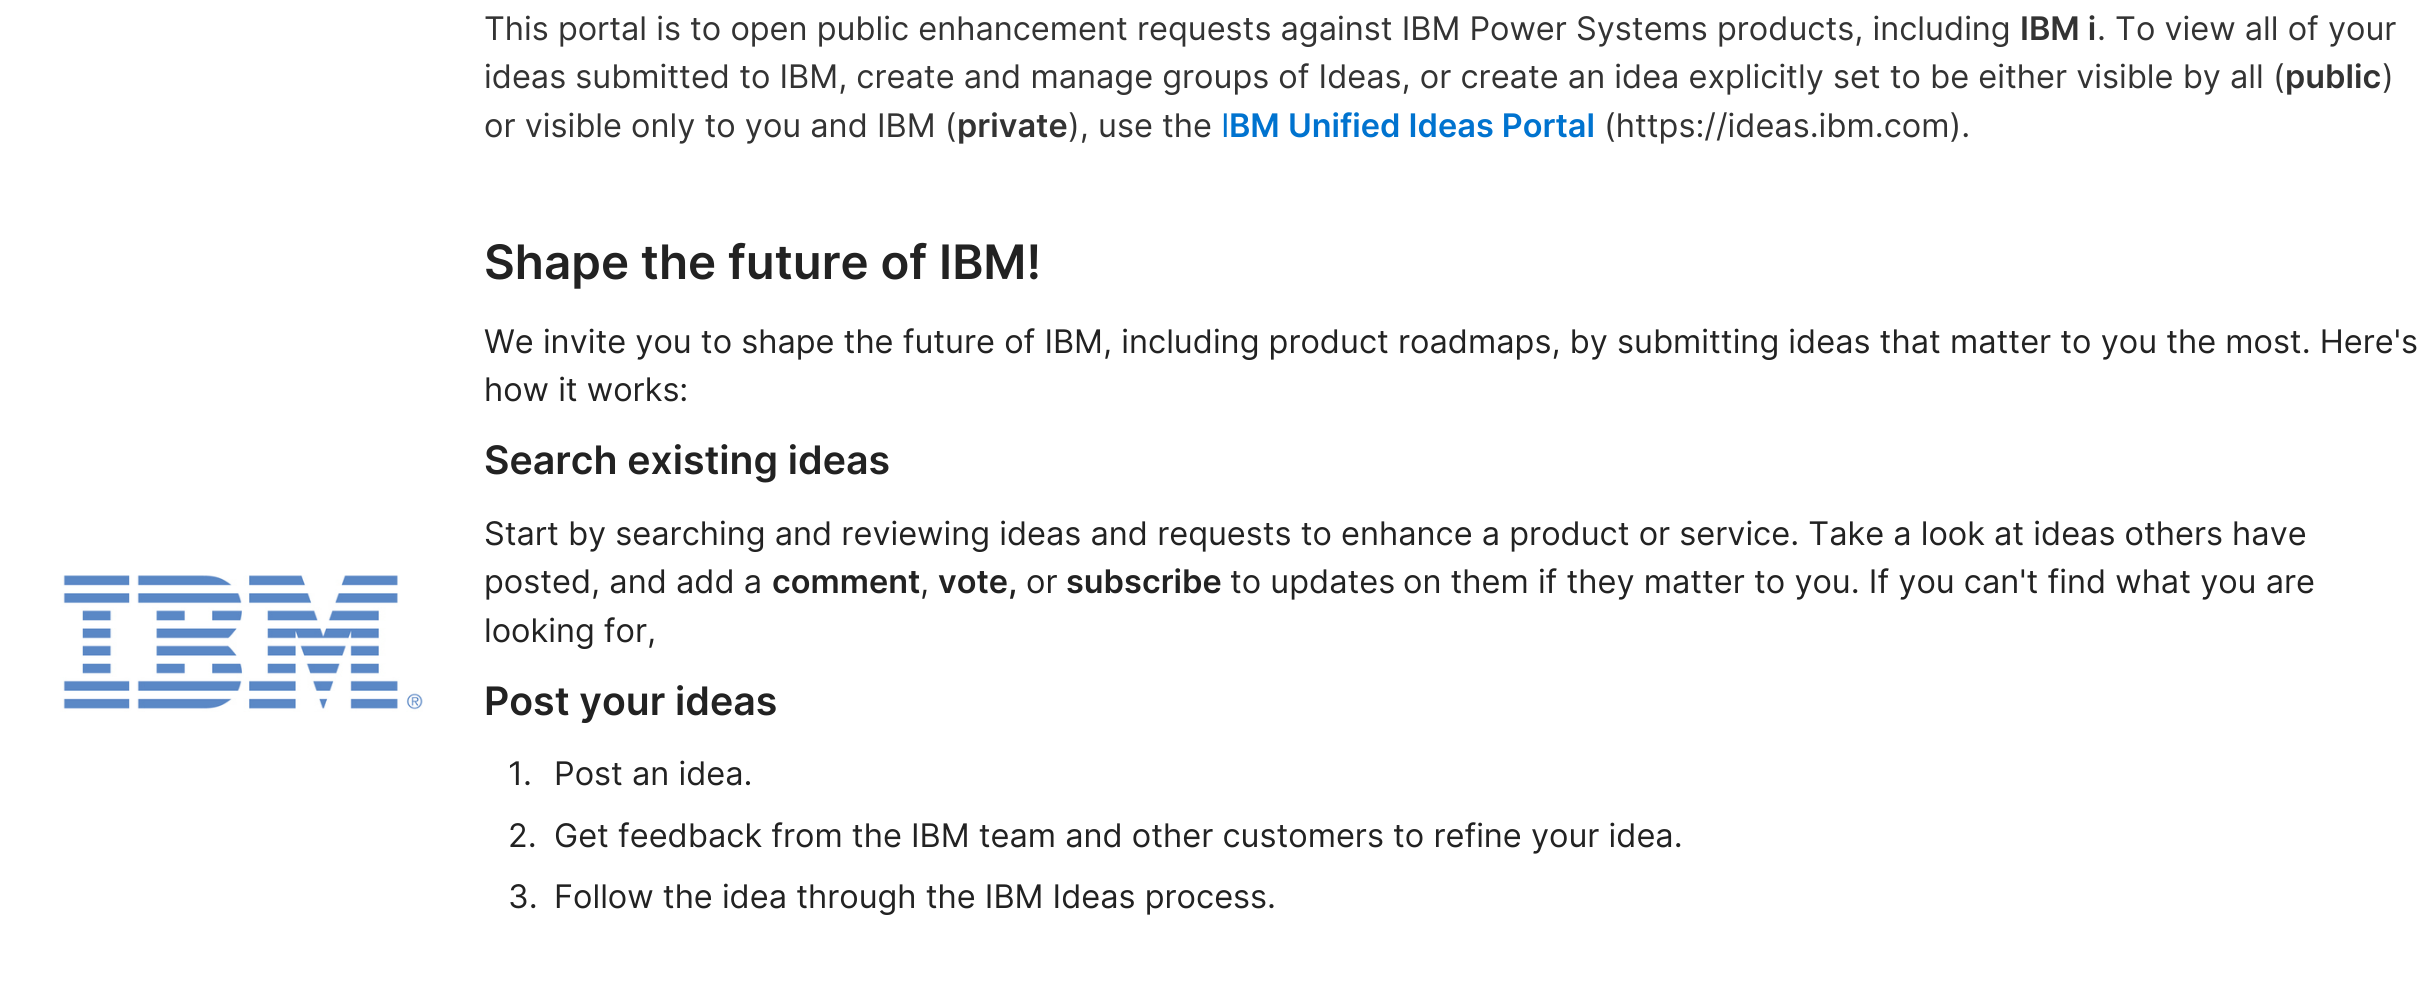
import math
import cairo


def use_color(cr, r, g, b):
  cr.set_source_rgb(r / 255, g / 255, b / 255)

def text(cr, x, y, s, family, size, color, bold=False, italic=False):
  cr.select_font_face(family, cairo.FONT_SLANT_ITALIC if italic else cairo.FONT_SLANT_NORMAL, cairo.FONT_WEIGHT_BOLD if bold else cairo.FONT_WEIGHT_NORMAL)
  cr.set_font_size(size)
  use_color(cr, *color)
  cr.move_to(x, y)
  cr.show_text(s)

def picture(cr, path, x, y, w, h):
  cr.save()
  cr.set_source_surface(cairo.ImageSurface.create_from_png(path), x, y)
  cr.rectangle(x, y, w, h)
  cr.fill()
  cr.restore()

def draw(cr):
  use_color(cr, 255, 255, 255)
  cr.paint()
  picture(cr, "img_01.png", 60, 575, 363, 137)
  text(cr, 484, 40, "This portal is to open public enhancement requests against IBM Power Systems products, including", "Inter", 32.5, (51, 51, 51))
  text(cr, 2020, 40, "IBM i", "Inter SemiBold", 32.5, (51, 51, 51))
  text(cr, 2097, 40, ". To view all of your", "Inter", 32.5, (51, 51, 51))
  text(cr, 484, 88, "ideas submitted to IBM, create and manage groups of Ideas, or create an idea explicitly set to be either visible by all (", "Inter", 32.5, (51, 51, 51))
  text(cr, 2285, 88, "public", "Inter SemiBold", 32.5, (51, 51, 51))
  text(cr, 2382, 88, ")", "Inter", 32.5, (51, 51, 51))
  text(cr, 484, 137, "or visible only to you and IBM (", "Inter", 32.5, (51, 51, 51))
  text(cr, 957, 137, "private", "Inter SemiBold", 32.5, (51, 51, 51))
  text(cr, 1068, 137, "), use the", "Inter", 32.5, (51, 51, 51))
  text(cr, 1221, 137, "I", "Inter", 32.5, (0, 115, 207))
  text(cr, 1229, 137, "BM Unified Ideas Portal", "Inter SemiBold", 32.5, (0, 115, 207))
  text(cr, 1604, 137, "(https://ideas.ibm.com).", "Inter", 32.5, (51, 51, 51))
  text(cr, 484, 279, "Shape the future of IBM!", "Inter SemiBold", 47.5, (34, 34, 34))
  text(cr, 484, 353, "We invite you to shape the future of IBM, including product roadmaps, by submitting ideas that matter to you the most. Here's", "Inter", 32.5, (34, 34, 34))
  text(cr, 484, 401, "how it works:", "Inter", 32.5, (34, 34, 34))
  text(cr, 484, 474, "Search existing ideas", "Inter SemiBold", 39.25, (34, 34, 34))
  text(cr, 484, 545, "Start by searching and reviewing ideas and requests to enhance a product or service. Take a look at ideas others have", "Inter", 32.5, (34, 34, 34))
  text(cr, 484, 593, "posted, and add a", "Inter", 32.5, (34, 34, 34))
  text(cr, 772, 593, "comment", "Inter SemiBold", 32.5, (34, 34, 34))
  text(cr, 920, 593, ",", "Inter", 32.5, (34, 34, 34))
  text(cr, 938, 593, "vote,", "Inter SemiBold", 32.5, (34, 34, 34))
  text(cr, 1026, 593, "or", "Inter", 32.5, (34, 34, 34))
  text(cr, 1066, 593, "subscribe", "Inter SemiBold", 32.5, (34, 34, 34))
  text(cr, 1230, 593, "to updates", "Inter", 32.5, (34, 34, 34))
  text(cr, 1403, 593, "on them if they matter to you. If you can't find what you are", "Inter", 32.5, (34, 34, 34))
  text(cr, 484, 642, "looking for,", "Inter", 32.5, (34, 34, 34))
  text(cr, 484, 715, "Post your ideas", "Inter SemiBold", 39.25, (34, 34, 34))
  text(cr, 508, 785, "1.", "Inter", 32.5, (34, 34, 34))
  text(cr, 554, 785, "Post an idea.", "Inter", 32.5, (34, 34, 34))
  text(cr, 508, 847, "2.", "Inter", 32.5, (34, 34, 34))
  text(cr, 554, 847, "Get feedback from the IBM team and other customers to refine your idea.", "Inter", 32.5, (34, 34, 34))
  text(cr, 508, 908, "3.", "Inter", 32.5, (34, 34, 34))
  text(cr, 554, 908, "Follow the idea through the IBM Ideas process.", "Inter", 32.5, (34, 34, 34))


surface = cairo.ImageSurface(cairo.FORMAT_RGB24, 2428, 988)
cr = cairo.Context(surface)
options = cairo.FontOptions()
options.set_hint_metrics(cairo.HINT_METRICS_OFF)
options.set_hint_style(cairo.HINT_STYLE_NONE)
cr.set_font_options(options)
cr.set_miter_limit(4)
draw(cr)
surface.write_to_png("out.png")
